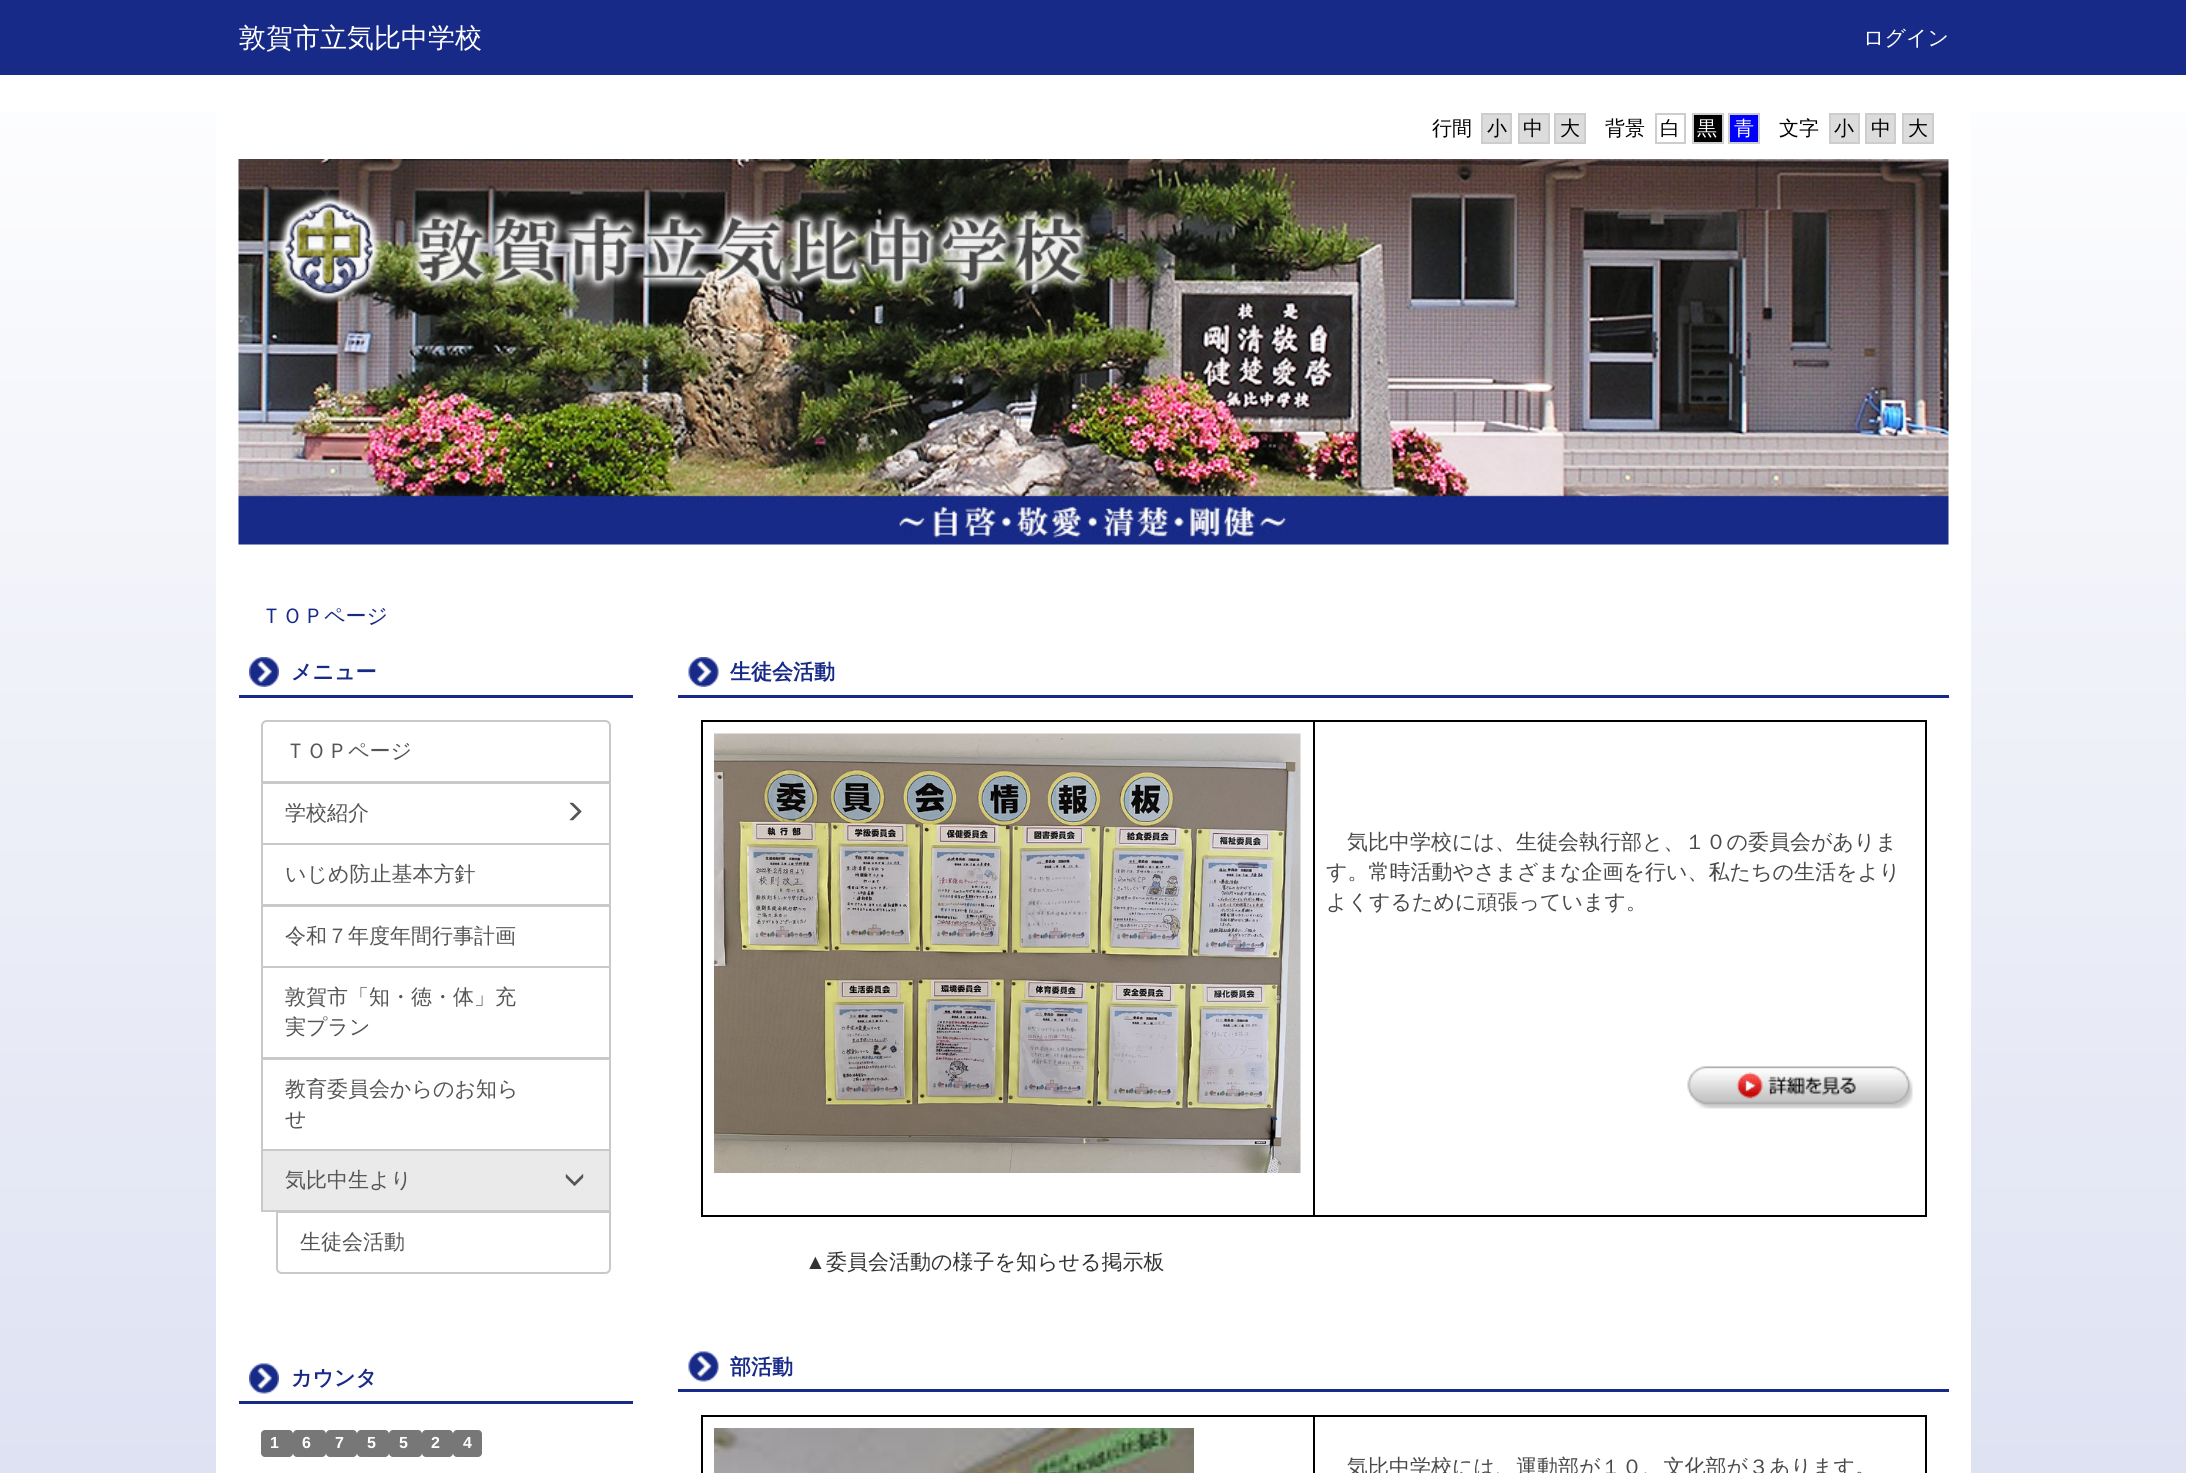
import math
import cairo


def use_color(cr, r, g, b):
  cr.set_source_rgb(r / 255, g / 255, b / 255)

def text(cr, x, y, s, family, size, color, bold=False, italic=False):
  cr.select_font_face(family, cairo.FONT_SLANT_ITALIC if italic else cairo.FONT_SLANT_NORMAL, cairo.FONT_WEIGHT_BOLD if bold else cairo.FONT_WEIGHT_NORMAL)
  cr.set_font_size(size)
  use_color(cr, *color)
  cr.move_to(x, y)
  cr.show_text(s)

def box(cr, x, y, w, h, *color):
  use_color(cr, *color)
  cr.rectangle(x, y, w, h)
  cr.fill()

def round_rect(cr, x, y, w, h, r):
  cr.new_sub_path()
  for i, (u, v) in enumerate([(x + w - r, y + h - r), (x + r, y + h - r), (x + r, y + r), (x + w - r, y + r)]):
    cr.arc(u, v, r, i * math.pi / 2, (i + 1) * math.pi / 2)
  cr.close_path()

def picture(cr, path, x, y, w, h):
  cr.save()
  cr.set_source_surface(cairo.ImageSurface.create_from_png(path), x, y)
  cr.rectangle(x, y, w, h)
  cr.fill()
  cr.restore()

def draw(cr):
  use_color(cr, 255, 255, 255)
  cr.paint()
  gradient = cairo.LinearGradient(1094, 1473, 1094, 0)
  gradient.add_color_stop_rgba(0, 0.871, 0.886, 0.949, 1)
  gradient.add_color_stop_rgba(1, 1, 1, 1, 1)
  cr.set_source(gradient)
  cr.rectangle(0, 112, 2186, 1361)
  cr.fill()
  box(cr, 0, 0, 2186, 75, 23, 42, 136)
  box(cr, 216, 112, 1755, 1361, 255, 255, 255)
  use_color(cr, 220, 220, 220)
  cr.rectangle(1482, 114, 29, 29)
  cr.fill_preserve()
  use_color(cr, 205, 205, 205)
  cr.stroke()
  use_color(cr, 220, 220, 220)
  cr.rectangle(1519, 114, 30, 29)
  cr.fill_preserve()
  use_color(cr, 205, 205, 205)
  cr.stroke()
  use_color(cr, 220, 220, 220)
  cr.rectangle(1555, 114, 30, 29)
  cr.fill_preserve()
  use_color(cr, 205, 205, 205)
  cr.stroke()
  cr.rectangle(1656, 114, 29, 29)
  cr.stroke()
  use_color(cr, 0, 0, 0)
  cr.rectangle(1693, 114, 30, 29)
  cr.fill_preserve()
  use_color(cr, 205, 205, 205)
  cr.stroke()
  use_color(cr, 0, 0, 255)
  cr.rectangle(1729, 114, 30, 29)
  cr.fill_preserve()
  use_color(cr, 205, 205, 205)
  cr.stroke()
  use_color(cr, 220, 220, 220)
  cr.rectangle(1830, 114, 29, 29)
  cr.fill_preserve()
  use_color(cr, 205, 205, 205)
  cr.stroke()
  use_color(cr, 220, 220, 220)
  cr.rectangle(1866, 114, 29, 29)
  cr.fill_preserve()
  use_color(cr, 205, 205, 205)
  cr.stroke()
  use_color(cr, 220, 220, 220)
  cr.rectangle(1903, 114, 30, 29)
  cr.fill_preserve()
  use_color(cr, 205, 205, 205)
  cr.stroke()
  picture(cr, "img_01.png", 238, 159, 1711, 386)
  picture(cr, "img_02.png", 249, 657, 30, 30)
  box(cr, 239, 695, 394, 3, 23, 42, 136)
  cr.new_path()
  cr.move_to(267, 721)
  cr.line_to(605, 721)
  cr.curve_to(608, 721, 610, 723, 610, 726)
  cr.line_to(610, 782)
  cr.line_to(262, 782)
  cr.line_to(262, 726)
  cr.curve_to(262, 723, 264, 721, 267, 721)
  cr.close_path()
  use_color(cr, 201, 201, 201)
  cr.stroke()
  cr.rectangle(262, 783, 348, 61)
  cr.stroke()
  picture(cr, "img_03.png", 569, 802, 13, 19)
  cr.rectangle(262, 844, 348, 61)
  cr.stroke()
  cr.rectangle(262, 906, 348, 61)
  cr.stroke()
  cr.rectangle(262, 967, 348, 91)
  cr.stroke()
  cr.rectangle(262, 1059, 348, 91)
  cr.stroke()
  cr.new_path()
  cr.move_to(277, 1212)
  cr.line_to(610, 1212)
  cr.line_to(610, 1268)
  cr.curve_to(610, 1271, 608, 1273, 605, 1273)
  cr.line_to(282, 1273)
  cr.curve_to(279, 1273, 277, 1271, 277, 1268)
  cr.close_path()
  cr.stroke()
  use_color(cr, 234, 234, 234)
  cr.rectangle(262, 1150, 348, 61)
  cr.fill_preserve()
  use_color(cr, 201, 201, 201)
  cr.stroke()
  picture(cr, "img_04.png", 565, 1174, 19, 12)
  picture(cr, "img_05.png", 249, 1363, 30, 31)
  box(cr, 239, 1401, 394, 3, 23, 42, 136)
  use_color(cr, 119, 119, 119)
  round_rect(cr, 261, 1430, 32, 27, 4)
  cr.fill()
  round_rect(cr, 293, 1430, 33, 27, 4)
  cr.fill()
  round_rect(cr, 326, 1430, 31, 27, 4)
  cr.fill()
  round_rect(cr, 357, 1430, 32, 27, 4)
  cr.fill()
  round_rect(cr, 389, 1430, 33, 27, 4)
  cr.fill()
  round_rect(cr, 422, 1430, 31, 27, 4)
  cr.fill()
  round_rect(cr, 453, 1430, 29, 27, 4)
  cr.fill()
  picture(cr, "img_06.png", 688, 657, 31, 30)
  box(cr, 678, 695, 1271, 3, 23, 42, 136)
  box(cr, 1313, 720, 613, 2, 0, 0, 0)
  box(cr, 1925, 720, 2, 497, 0, 0, 0)
  box(cr, 1313, 1215, 613, 2, 0, 0, 0)
  box(cr, 1313, 720, 2, 497, 0, 0, 0)
  box(cr, 701, 720, 613, 2, 0, 0, 0)
  box(cr, 701, 1215, 613, 2, 0, 0, 0)
  box(cr, 701, 720, 2, 497, 0, 0, 0)
  picture(cr, "img_07.png", 714, 733, 587, 440)
  picture(cr, "img_08.png", 1687, 1066, 226, 43)
  picture(cr, "img_09.png", 688, 1351, 31, 31)
  box(cr, 678, 1389, 1271, 3, 23, 42, 136)
  box(cr, 1313, 1415, 613, 2, 0, 0, 0)
  box(cr, 1313, 1415, 2, 58, 0, 0, 0)
  box(cr, 701, 1415, 613, 2, 0, 0, 0)
  box(cr, 701, 1415, 2, 58, 0, 0, 0)
  picture(cr, "img_10.png", 714, 1428, 480, 45)
  box(cr, 1925, 1415, 2, 58, 0, 0, 0)
  text(cr, 239, 47, "敦賀市立気比中学校", "WenQuanYi Zen Hei Medium", 27, (255, 255, 255))
  text(cr, 1863, 45, "ログイン", "WenQuanYi Zen Hei Medium", 21, (255, 255, 255))
  text(cr, 1432, 135, "行間", "WenQuanYi Zen Hei Medium", 20, (0, 0, 0))
  text(cr, 1487, 135, "小", "WenQuanYi Zen Hei Medium", 20, (0, 0, 0))
  text(cr, 1523, 135, "中", "WenQuanYi Zen Hei Medium", 20, (0, 0, 0))
  text(cr, 1560, 135, "大", "WenQuanYi Zen Hei Medium", 20, (0, 0, 0))
  text(cr, 1605, 135, "背景", "WenQuanYi Zen Hei Medium", 20, (0, 0, 0))
  text(cr, 1660, 135, "白", "WenQuanYi Zen Hei Medium", 20, (0, 0, 0))
  text(cr, 1697, 135, "黒", "WenQuanYi Zen Hei Medium", 20, (255, 255, 255))
  text(cr, 1734, 135, "青", "WenQuanYi Zen Hei Medium", 20, (255, 255, 255))
  text(cr, 1779, 135, "文字", "WenQuanYi Zen Hei Medium", 20, (0, 0, 0))
  text(cr, 1834, 135, "小", "WenQuanYi Zen Hei Medium", 20, (0, 0, 0))
  text(cr, 1871, 135, "中", "WenQuanYi Zen Hei Medium", 20, (0, 0, 0))
  text(cr, 1908, 135, "大", "WenQuanYi Zen Hei Medium", 20, (0, 0, 0))
  text(cr, 261, 623, "ＴＯＰページ", "WenQuanYi Zen Hei Medium", 21, (23, 42, 136))
  text(cr, 291, 679, "メニュー", "WenQuanYi Zen Hei", 21, (23, 42, 136), bold=True)
  text(cr, 285, 758, "ＴＯＰページ", "WenQuanYi Zen Hei Medium", 21, (85, 85, 85))
  text(cr, 285, 820, "学校紹介", "WenQuanYi Zen Hei Medium", 21, (85, 85, 85))
  text(cr, 285, 881, "いじめ防止基本方針", "WenQuanYi Zen Hei Medium", 21, (85, 85, 85))
  text(cr, 285, 943, "令和７年度年間行事計画", "WenQuanYi Zen Hei Medium", 21, (85, 85, 85))
  text(cr, 285, 1004, "敦賀市「知・徳・体」充", "WenQuanYi Zen Hei Medium", 21, (85, 85, 85))
  text(cr, 285, 1034, "実プラン", "WenQuanYi Zen Hei Medium", 21, (85, 85, 85))
  text(cr, 285, 1096, "教育委員会からのお知ら", "WenQuanYi Zen Hei Medium", 21, (85, 85, 85))
  text(cr, 285, 1126, "せ", "WenQuanYi Zen Hei Medium", 21, (85, 85, 85))
  text(cr, 285, 1187, "気比中生より", "WenQuanYi Zen Hei Medium", 21, (85, 85, 85))
  text(cr, 300, 1249, "生徒会活動", "WenQuanYi Zen Hei Medium", 21, (85, 85, 85))
  text(cr, 291, 1385, "カウンタ", "WenQuanYi Zen Hei", 21, (23, 42, 136), bold=True)
  text(cr, 270, 1448, "1", "Liberation Sans", 16, (255, 255, 255), bold=True)
  text(cr, 302, 1448, "6", "Liberation Sans", 16, (255, 255, 255), bold=True)
  text(cr, 335, 1448, "7", "Liberation Sans", 16, (255, 255, 255), bold=True)
  text(cr, 367, 1448, "5", "Liberation Sans", 16, (255, 255, 255), bold=True)
  text(cr, 399, 1448, "5", "Liberation Sans", 16, (255, 255, 255), bold=True)
  text(cr, 431, 1448, "2", "Liberation Sans", 16, (255, 255, 255), bold=True)
  text(cr, 463, 1448, "4", "Liberation Sans", 16, (255, 255, 255), bold=True)
  text(cr, 730, 679, "生徒会活動", "WenQuanYi Zen Hei", 21, (23, 42, 136), bold=True)
  text(cr, 1347, 849, "気比中学校には、生徒会執行部と、１０の委員会がありま", "WenQuanYi Zen Hei Medium", 21, (73, 73, 73))
  text(cr, 1326, 879, "す。常時活動やさまざまな企画を行い、私たちの生活をより", "WenQuanYi Zen Hei Medium", 21, (73, 73, 73))
  text(cr, 1326, 909, "よくするために頑張っています。", "WenQuanYi Zen Hei Medium", 21, (73, 73, 73))
  text(cr, 805, 1269, "▲", "Liberation Sans", 21, (51, 51, 51))
  text(cr, 826, 1269, "委員会活動の様子を知らせる掲示板", "WenQuanYi Zen Hei Medium", 21, (51, 51, 51))
  text(cr, 730, 1374, "部活動", "WenQuanYi Zen Hei", 21, (23, 42, 136), bold=True)
  text(cr, 1347, 1474, "気比中学校には、運動部が１０、文化部が３あります。", "WenQuanYi Zen Hei Medium", 21, (73, 73, 73))


surface = cairo.ImageSurface(cairo.FORMAT_RGB24, 2186, 1473)
cr = cairo.Context(surface)
options = cairo.FontOptions()
options.set_hint_metrics(cairo.HINT_METRICS_OFF)
options.set_hint_style(cairo.HINT_STYLE_NONE)
cr.set_font_options(options)
cr.set_miter_limit(4)
draw(cr)
surface.write_to_png("out.png")
